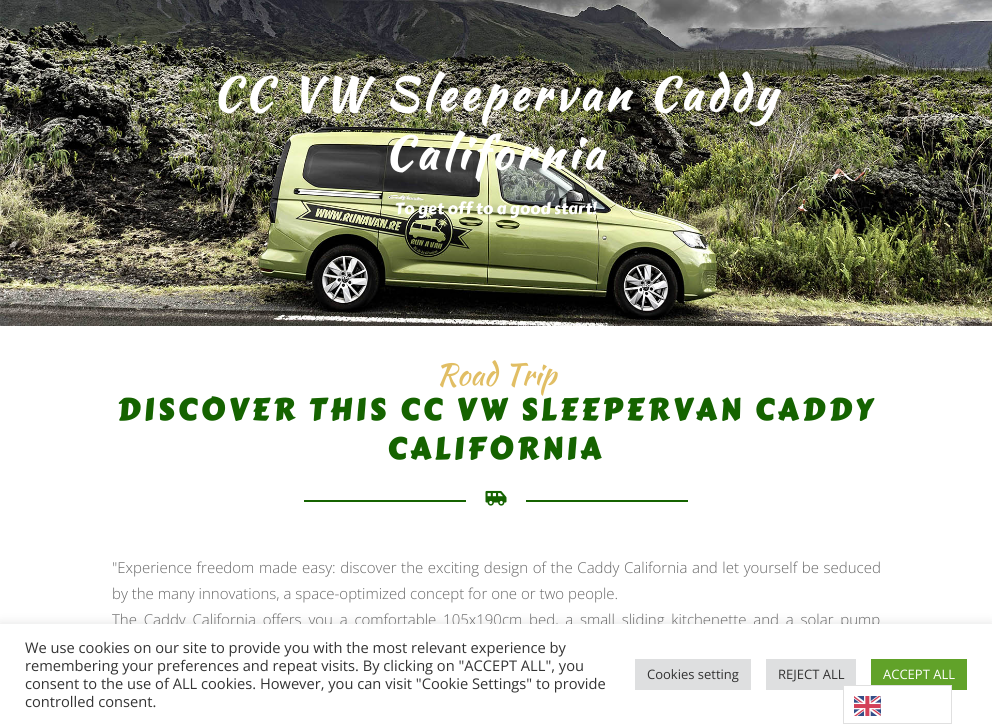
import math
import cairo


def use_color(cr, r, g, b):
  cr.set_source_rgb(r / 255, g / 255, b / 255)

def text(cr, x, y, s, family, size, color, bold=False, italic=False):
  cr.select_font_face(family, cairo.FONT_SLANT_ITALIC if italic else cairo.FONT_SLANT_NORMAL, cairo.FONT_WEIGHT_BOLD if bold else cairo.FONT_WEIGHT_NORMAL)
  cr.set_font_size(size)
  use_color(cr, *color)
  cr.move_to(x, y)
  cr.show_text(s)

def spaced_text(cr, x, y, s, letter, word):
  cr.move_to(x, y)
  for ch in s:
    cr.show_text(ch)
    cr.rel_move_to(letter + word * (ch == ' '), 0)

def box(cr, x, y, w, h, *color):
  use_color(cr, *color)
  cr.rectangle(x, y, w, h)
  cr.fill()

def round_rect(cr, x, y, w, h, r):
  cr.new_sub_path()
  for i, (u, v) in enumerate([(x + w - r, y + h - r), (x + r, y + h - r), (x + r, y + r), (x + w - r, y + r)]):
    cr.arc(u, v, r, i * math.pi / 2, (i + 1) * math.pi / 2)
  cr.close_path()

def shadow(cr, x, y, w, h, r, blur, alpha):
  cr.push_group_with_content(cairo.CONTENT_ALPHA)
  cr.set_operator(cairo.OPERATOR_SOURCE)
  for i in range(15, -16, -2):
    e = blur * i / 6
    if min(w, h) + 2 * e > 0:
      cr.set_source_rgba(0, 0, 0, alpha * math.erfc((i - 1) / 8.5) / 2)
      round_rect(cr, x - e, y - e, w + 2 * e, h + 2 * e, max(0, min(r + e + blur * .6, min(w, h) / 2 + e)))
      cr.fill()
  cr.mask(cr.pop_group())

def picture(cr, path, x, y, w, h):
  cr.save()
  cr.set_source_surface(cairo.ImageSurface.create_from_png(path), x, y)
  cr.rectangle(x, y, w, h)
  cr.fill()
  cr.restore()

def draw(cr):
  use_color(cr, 255, 255, 255)
  cr.paint()
  picture(cr, "img_01.png", 0, 0, 992, 326)
  box(cr, 304, 500, 162, 2, 21, 99, 0)
  picture(cr, "img_02.png", 485, 490, 22, 16)
  box(cr, 526, 500, 162, 2, 21, 99, 0)
  use_color(cr, 172, 171, 171)
  shadow(cr, 0, 623, 992, 100, 0, 5, 0.3)
  cr.select_font_face("Kaushan Script", cairo.FONT_SLANT_NORMAL, cairo.FONT_WEIGHT_BOLD)
  cr.set_font_size(45)
  use_color(cr, 255, 255, 255)
  spaced_text(cr, 212, 110, "CC VW Sleepervan Caddy", 4.5, 0)
  spaced_text(cr, 384, 169, "California", 4.5, 0)
  text(cr, 395, 214, "To get off to a good start!", "Carter One", 16, (255, 255, 255))
  text(cr, 436, 385, "Road Trip", "Kaushan Script", 30, (225, 190, 100))
  cr.select_font_face("Carter One", cairo.FONT_SLANT_NORMAL, cairo.FONT_WEIGHT_BOLD)
  use_color(cr, 21, 99, 0)
  spaced_text(cr, 117, 420, "DISCOVER THIS CC VW SLEEPERVAN CADDY", 4, 0)
  spaced_text(cr, 387, 459, "CALIFORNIA", 4, 0)
  cr.select_font_face("Open Sans Light")
  cr.set_font_size(15)
  use_color(cr, 102, 102, 102)
  spaced_text(cr, 112, 573, "\"Experience freedom made easy: discover the exciting design of the Caddy California and let yourself be seduced", 0, 0.75)
  text(cr, 112, 599, "by the many innovations, a space-optimized concept for one or two people.", "Open Sans Light", 15, (102, 102, 102))
  spaced_text(cr, 112, 625, "The Caddy California offers you a comfortable 105x190cm bed, a small sliding kitchenette and a solar pump", 0, 2.9)
  box(cr, 0, 624, 992, 100, 255, 255, 255)
  text(cr, 25, 653, "We use cookies on our site to provide you with the most relevant experience by", "Open Sans", 14.65, (51, 51, 51))
  text(cr, 25, 671, "remembering your preferences and repeat visits. By clicking on \"ACCEPT ALL\", you", "Open Sans", 14.65, (51, 51, 51))
  text(cr, 25, 689, "consent to the use of ALL cookies. However, you can visit \"Cookie Settings\" to provide", "Open Sans", 14.65, (51, 51, 51))
  text(cr, 25, 707, "controlled consent.", "Open Sans", 14.65, (51, 51, 51))
  box(cr, 635, 659, 116, 31, 222, 223, 224)
  text(cr, 647, 679, "Cookies setting", "Open Sans", 13, (51, 51, 51))
  box(cr, 766, 659, 90, 31, 222, 223, 224)
  text(cr, 778, 679, "REJECT ALL", "Open Sans", 13, (51, 51, 51))
  box(cr, 871, 659, 96, 31, 97, 162, 41)
  text(cr, 883, 679, "ACCEPT ALL", "Open Sans", 13, (255, 255, 255))
  box(cr, 844, 686, 107, 4, 255, 255, 255)
  cr.rectangle(843.5, 685.5, 108, 38)
  use_color(cr, 224, 224, 224)
  cr.set_line_width(1)
  cr.stroke()
  picture(cr, "img_03.png", 854, 696, 27, 20)


surface = cairo.ImageSurface(cairo.FORMAT_RGB24, 992, 724)
cr = cairo.Context(surface)
options = cairo.FontOptions()
options.set_hint_metrics(cairo.HINT_METRICS_OFF)
options.set_hint_style(cairo.HINT_STYLE_NONE)
cr.set_font_options(options)
cr.set_miter_limit(4)
draw(cr)
surface.write_to_png("out.png")
